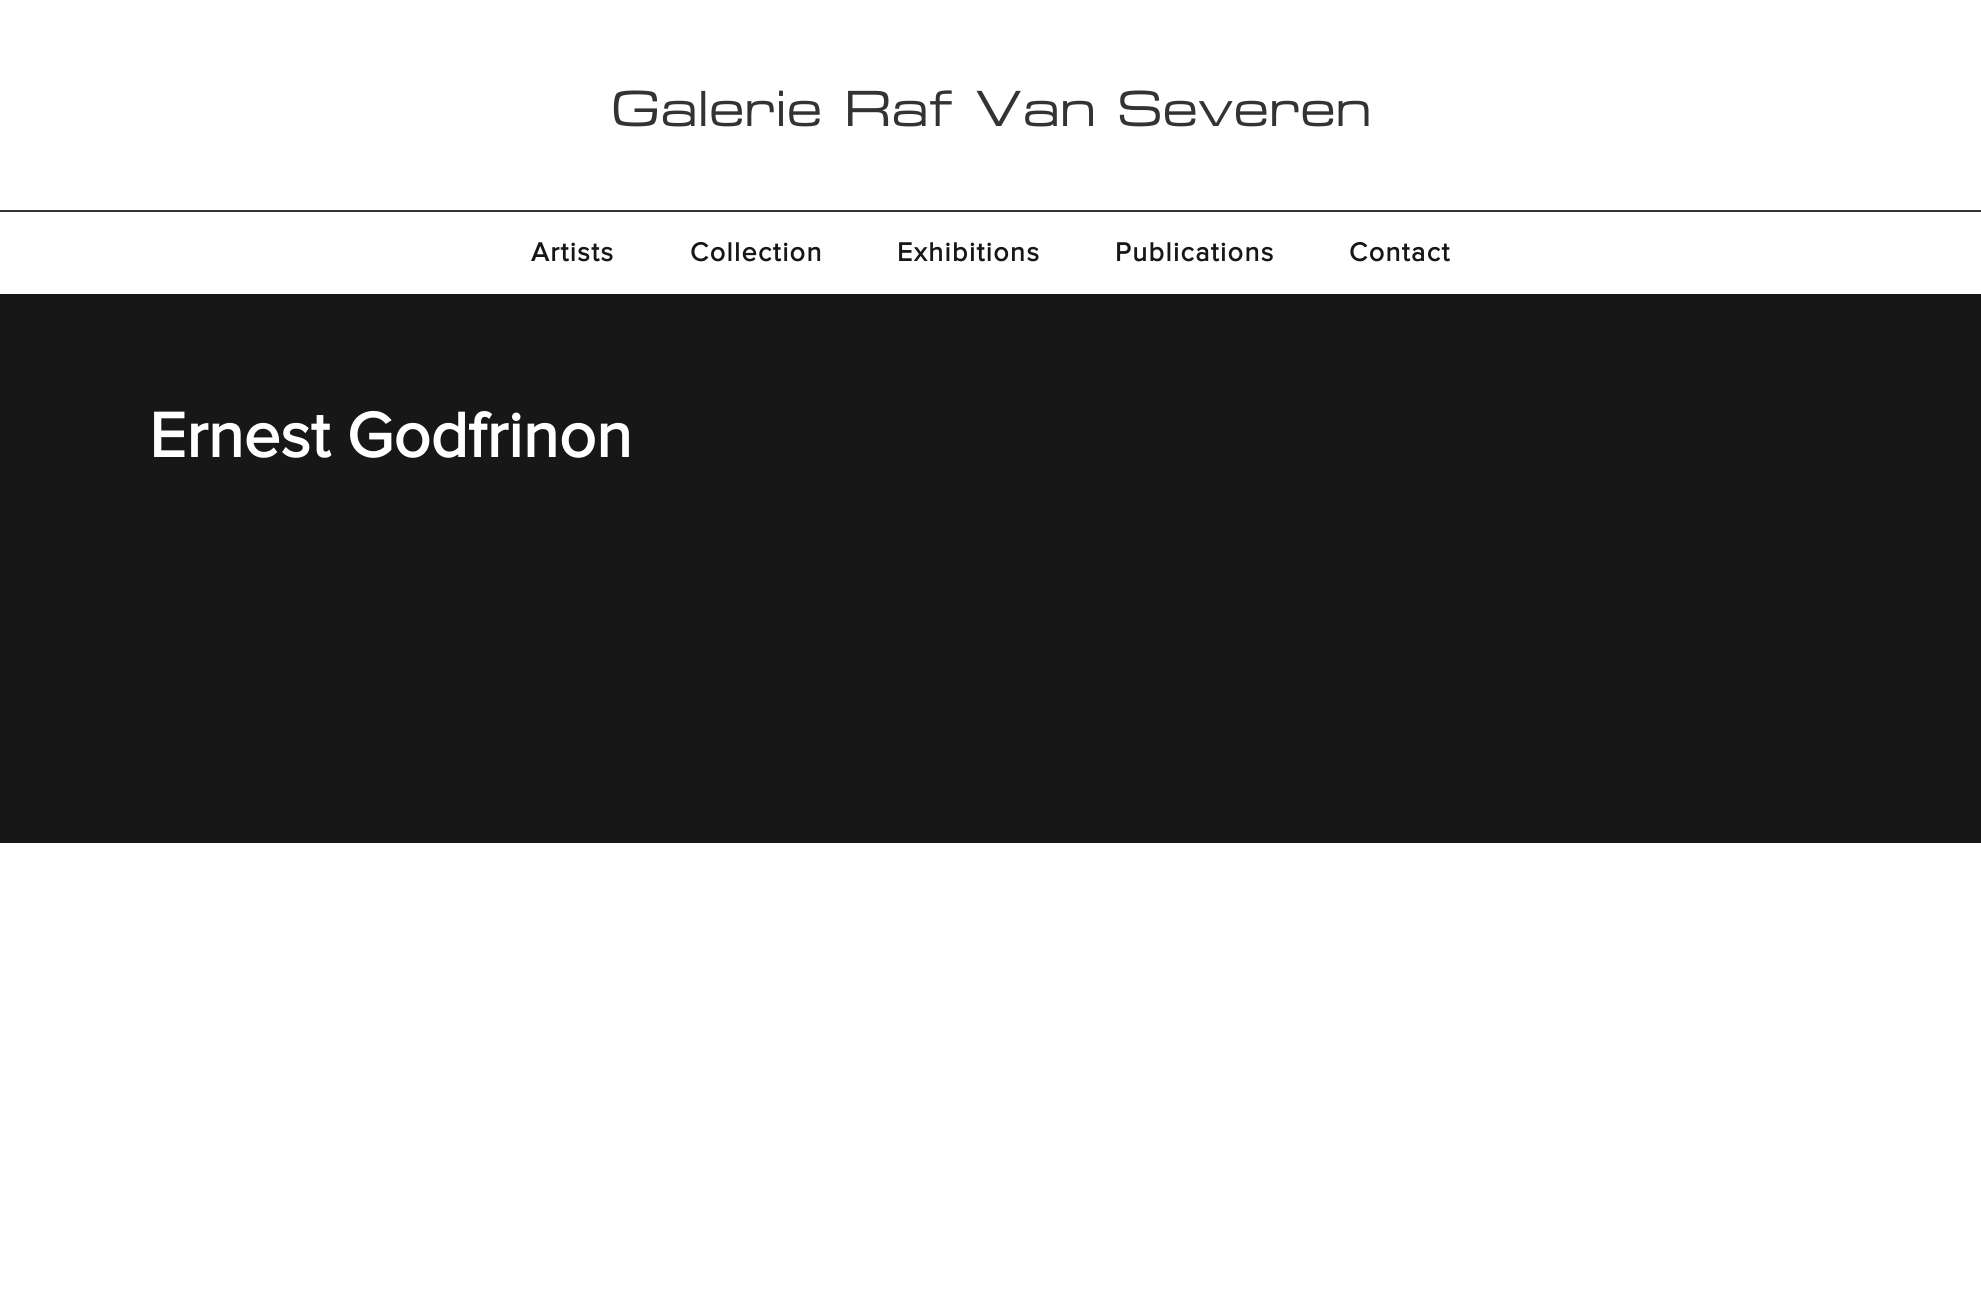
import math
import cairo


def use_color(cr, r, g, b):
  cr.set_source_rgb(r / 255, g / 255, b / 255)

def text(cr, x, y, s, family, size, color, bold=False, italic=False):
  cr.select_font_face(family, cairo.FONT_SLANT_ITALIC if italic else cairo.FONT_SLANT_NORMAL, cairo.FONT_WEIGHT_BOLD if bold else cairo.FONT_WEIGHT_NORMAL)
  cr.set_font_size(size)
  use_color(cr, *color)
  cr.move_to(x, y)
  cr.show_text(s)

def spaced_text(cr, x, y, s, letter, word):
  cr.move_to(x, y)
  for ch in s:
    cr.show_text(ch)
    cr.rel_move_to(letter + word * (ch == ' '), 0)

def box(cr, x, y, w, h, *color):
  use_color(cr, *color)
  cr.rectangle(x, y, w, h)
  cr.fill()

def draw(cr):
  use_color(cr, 255, 255, 255)
  cr.paint()
  box(cr, 0, 210, 1981, 2, 51, 51, 51)
  box(cr, 0, 294, 1981, 549, 24, 23, 23)
  text(cr, 611, 126, "Galerie Raf Van Severen", "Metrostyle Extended", 60, (51, 51, 51))
  cr.select_font_face("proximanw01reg", cairo.FONT_SLANT_NORMAL, cairo.FONT_WEIGHT_BOLD)
  cr.set_font_size(27)
  use_color(cr, 24, 23, 23)
  spaced_text(cr, 531, 261, "Artists", 1.4, 0)
  spaced_text(cr, 690, 261, "Collection", 1.4, 0)
  spaced_text(cr, 897, 261, "Exhibitions", 1.4, 0)
  spaced_text(cr, 1115, 261, "Publications", 1.4, 0)
  spaced_text(cr, 1349, 261, "Contact", 1.4, 0)
  text(cr, 149, 457, "Ernest Godfrinon", "proximanw01reg", 65.25, (255, 255, 255), bold=True)


surface = cairo.ImageSurface(cairo.FORMAT_RGB24, 1981, 1309)
cr = cairo.Context(surface)
options = cairo.FontOptions()
options.set_hint_metrics(cairo.HINT_METRICS_OFF)
options.set_hint_style(cairo.HINT_STYLE_NONE)
cr.set_font_options(options)
cr.set_miter_limit(4)
draw(cr)
surface.write_to_png("out.png")
